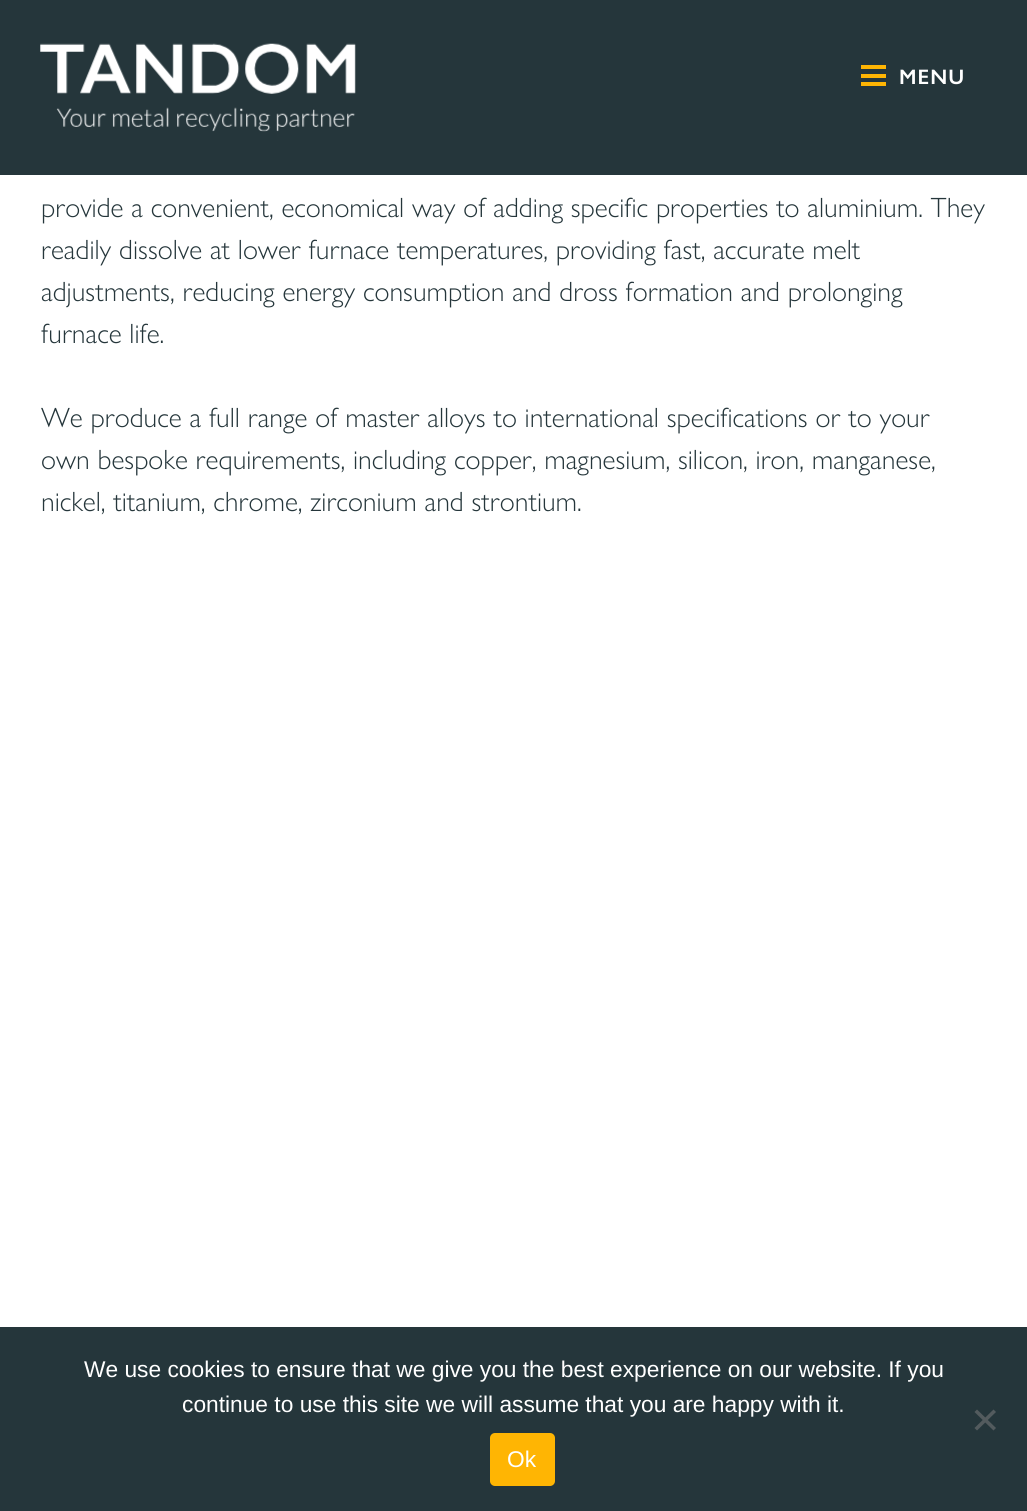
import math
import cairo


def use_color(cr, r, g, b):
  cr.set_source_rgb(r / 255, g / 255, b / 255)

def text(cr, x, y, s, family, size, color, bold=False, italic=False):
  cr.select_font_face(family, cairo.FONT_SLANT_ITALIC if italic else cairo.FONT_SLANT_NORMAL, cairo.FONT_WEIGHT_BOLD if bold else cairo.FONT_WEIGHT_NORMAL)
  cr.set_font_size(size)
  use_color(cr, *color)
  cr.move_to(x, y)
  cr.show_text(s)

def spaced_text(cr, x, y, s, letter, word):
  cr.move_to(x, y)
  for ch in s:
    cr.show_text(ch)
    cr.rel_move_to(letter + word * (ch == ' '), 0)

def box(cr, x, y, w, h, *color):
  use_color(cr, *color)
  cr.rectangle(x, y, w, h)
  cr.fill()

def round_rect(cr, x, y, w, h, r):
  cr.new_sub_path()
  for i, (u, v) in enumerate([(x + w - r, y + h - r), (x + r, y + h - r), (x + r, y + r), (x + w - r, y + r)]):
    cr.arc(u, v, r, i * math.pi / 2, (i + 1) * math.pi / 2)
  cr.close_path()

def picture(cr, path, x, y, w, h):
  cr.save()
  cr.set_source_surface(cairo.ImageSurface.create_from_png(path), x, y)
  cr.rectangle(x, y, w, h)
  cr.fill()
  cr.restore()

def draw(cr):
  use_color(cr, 255, 255, 255)
  cr.paint()
  box(cr, 0, 0, 1027, 175, 37, 54, 59)
  picture(cr, "img_01.png", 40, 43, 316, 89)
  box(cr, 861, 74, 25, 4, 255, 181, 3)
  box(cr, 861, 65, 25, 4, 255, 181, 3)
  box(cr, 861, 82, 25, 4, 255, 181, 3)
  box(cr, 0, 1327, 1027, 184, 37, 54, 59)
  use_color(cr, 83, 91, 94)
  cr.new_path()
  cr.move_to(993.5, 1409.5)
  cr.line_to(996, 1412)
  cr.line_to(977, 1430.5)
  cr.line_to(974.5, 1428)
  cr.close_path()
  cr.fill()
  cr.new_path()
  cr.move_to(974.5, 1412)
  cr.line_to(977, 1409.5)
  cr.line_to(996, 1428)
  cr.line_to(993.5, 1430.5)
  cr.close_path()
  cr.fill()
  use_color(cr, 255, 181, 3)
  round_rect(cr, 490, 1433, 65, 53, 5)
  cr.fill()
  cr.select_font_face("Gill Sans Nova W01 SemiBold")
  cr.set_font_size(21)
  use_color(cr, 255, 255, 255)
  spaced_text(cr, 899, 84, "MENU", 1, 0)
  text(cr, 41, 217, "provide a convenient, economical way of adding specific properties to aluminium. They", "Gill Sans Nova W01 Light", 28, (37, 54, 59))
  text(cr, 41, 259, "readily dissolve at lower furnace temperatures, providing fast, accurate melt", "Gill Sans Nova W01 Light", 28, (37, 54, 59))
  text(cr, 41, 301, "adjustments, reducing energy consumption and dross formation and prolonging", "Gill Sans Nova W01 Light", 28, (37, 54, 59))
  text(cr, 41, 343, "furnace life.", "Gill Sans Nova W01 Light", 28, (37, 54, 59))
  text(cr, 41, 427, "We produce a full range of master alloys to international specifications or to your", "Gill Sans Nova W01 Light", 28, (37, 54, 59))
  text(cr, 41, 469, "own bespoke requirements, including copper, magnesium, silicon, iron, manganese,", "Gill Sans Nova W01 Light", 28, (37, 54, 59))
  text(cr, 41, 511, "nickel, titanium, chrome, zirconium and strontium.", "Gill Sans Nova W01 Light", 28, (37, 54, 59))
  text(cr, 84, 1377, "We use cookies to ensure that we give you the best experience on our website. If you", "Liberation Sans", 22.75, (255, 255, 255))
  text(cr, 182, 1412, "continue to use this site we will assume that you are happy with it.", "Liberation Sans", 22.75, (255, 255, 255))
  text(cr, 507, 1467, "Ok", "Liberation Sans", 22.75, (255, 255, 255))


surface = cairo.ImageSurface(cairo.FORMAT_RGB24, 1027, 1511)
cr = cairo.Context(surface)
options = cairo.FontOptions()
options.set_hint_metrics(cairo.HINT_METRICS_OFF)
options.set_hint_style(cairo.HINT_STYLE_NONE)
cr.set_font_options(options)
cr.set_miter_limit(4)
draw(cr)
surface.write_to_png("out.png")
